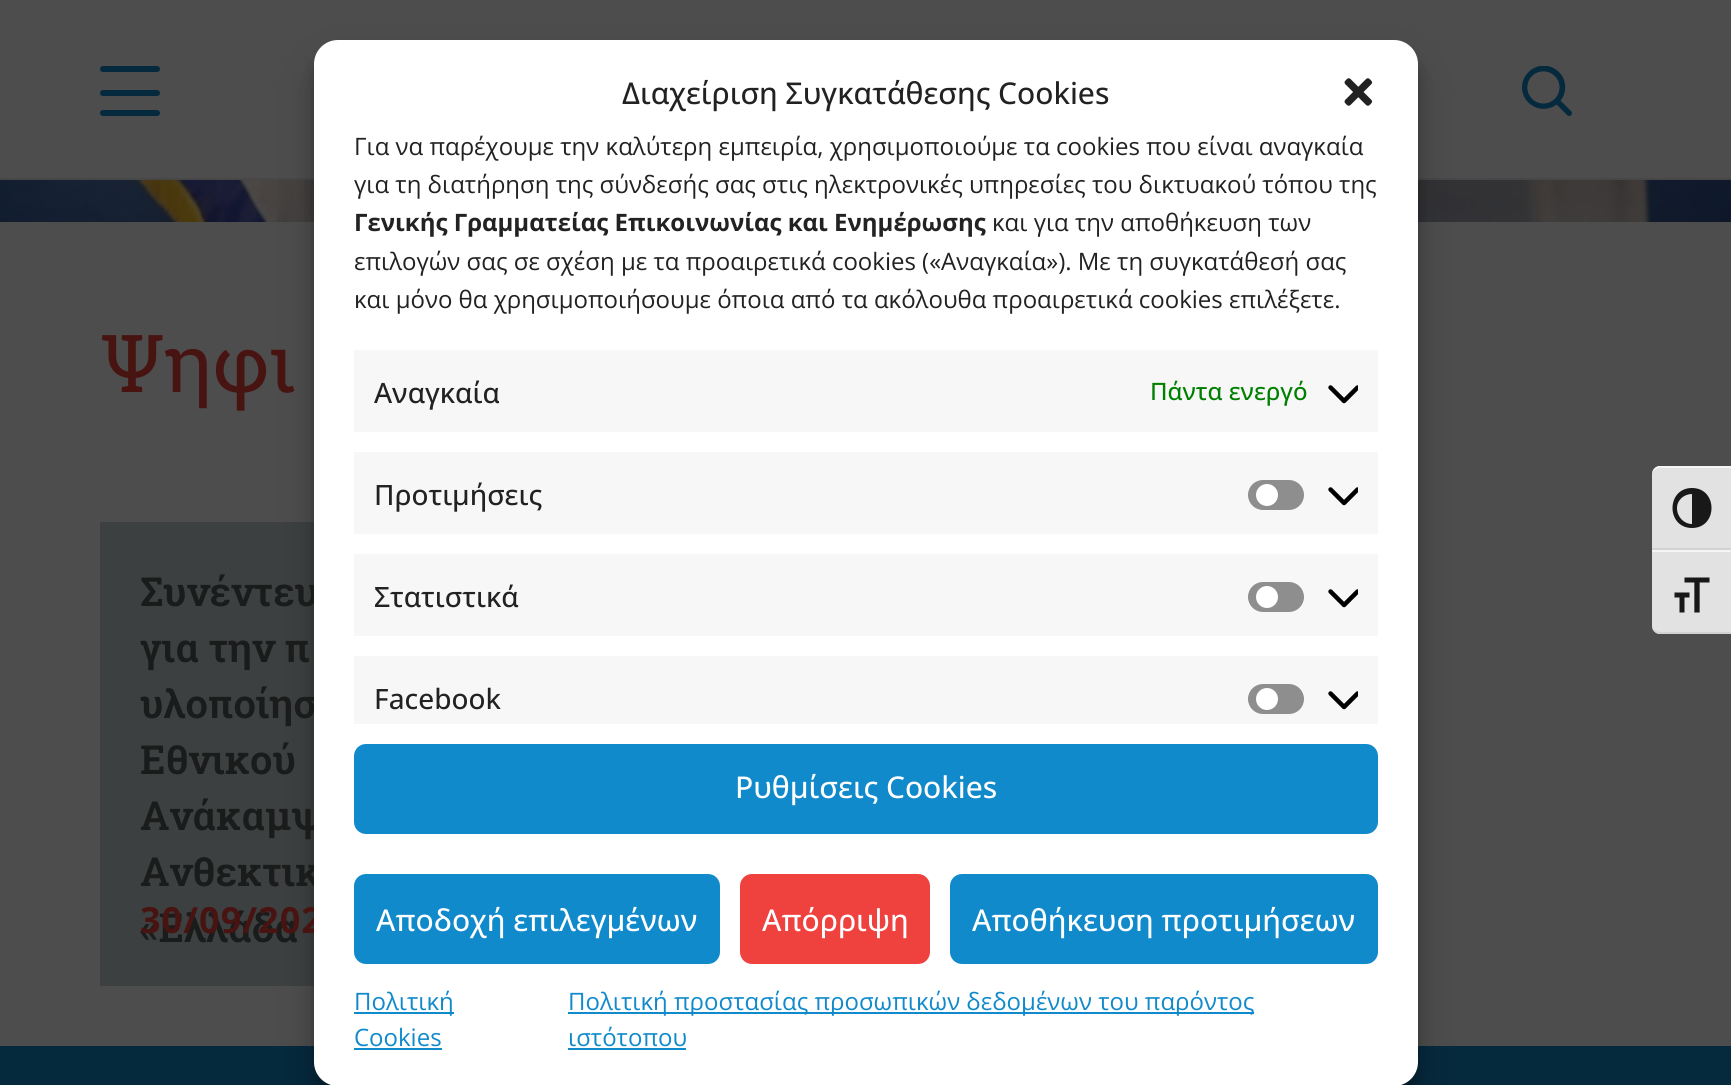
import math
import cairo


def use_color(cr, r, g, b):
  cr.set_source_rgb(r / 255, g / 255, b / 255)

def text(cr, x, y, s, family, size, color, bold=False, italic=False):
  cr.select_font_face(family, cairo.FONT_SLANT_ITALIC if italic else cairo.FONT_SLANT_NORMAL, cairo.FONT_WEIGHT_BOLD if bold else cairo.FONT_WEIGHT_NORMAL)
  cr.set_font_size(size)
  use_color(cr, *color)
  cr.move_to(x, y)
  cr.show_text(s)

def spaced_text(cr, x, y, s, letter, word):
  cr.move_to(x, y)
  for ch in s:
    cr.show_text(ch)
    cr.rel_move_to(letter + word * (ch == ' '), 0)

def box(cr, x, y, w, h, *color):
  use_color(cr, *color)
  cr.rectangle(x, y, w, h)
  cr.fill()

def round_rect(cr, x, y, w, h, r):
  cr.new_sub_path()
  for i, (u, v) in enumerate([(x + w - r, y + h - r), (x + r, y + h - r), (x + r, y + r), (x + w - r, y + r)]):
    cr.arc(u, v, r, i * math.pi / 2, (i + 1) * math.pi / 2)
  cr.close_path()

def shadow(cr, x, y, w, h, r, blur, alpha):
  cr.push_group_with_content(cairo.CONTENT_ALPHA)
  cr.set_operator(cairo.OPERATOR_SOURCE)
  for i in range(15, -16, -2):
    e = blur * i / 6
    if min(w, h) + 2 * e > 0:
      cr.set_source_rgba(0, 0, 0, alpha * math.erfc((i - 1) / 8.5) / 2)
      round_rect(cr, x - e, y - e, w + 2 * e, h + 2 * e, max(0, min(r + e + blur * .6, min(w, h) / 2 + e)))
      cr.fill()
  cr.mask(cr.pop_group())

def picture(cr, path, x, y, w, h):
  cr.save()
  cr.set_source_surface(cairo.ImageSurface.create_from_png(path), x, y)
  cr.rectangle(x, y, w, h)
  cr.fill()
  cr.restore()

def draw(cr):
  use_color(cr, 77, 77, 77)
  cr.paint()
  use_color(cr, 5, 41, 61)
  round_rect(cr, 100, 66, 60, 6, 3)
  cr.fill()
  round_rect(cr, 100, 90, 60, 6, 3)
  cr.fill()
  round_rect(cr, 100, 110, 60, 6, 3)
  cr.fill()
  picture(cr, "img_01.png", 1522, 66, 50, 50)
  box(cr, 0, 178, 1731, 2, 71, 71, 71)
  picture(cr, "img_02.png", 0, 180, 1731, 42)
  box(cr, 100, 522, 214, 464, 61, 64, 65)
  box(cr, 0, 1046, 1731, 39, 5, 41, 61)
  use_color(cr, 0, 0, 0)
  shadow(cr, 314, 52, 1104, 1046, 24, 6, 0.23)
  shadow(cr, 314, 60, 1104, 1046, 24, 20, 0.19)
  use_color(cr, 226, 226, 226)
  cr.new_path()
  cr.move_to(1660, 466)
  cr.line_to(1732, 466)
  cr.line_to(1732, 550)
  cr.line_to(1652, 550)
  cr.line_to(1652, 474)
  cr.curve_to(1652, 469.5, 1655.5, 466, 1660, 466)
  cr.close_path()
  cr.fill()
  use_color(cr, 245, 245, 245)
  cr.new_path()
  cr.move_to(1660, 468)
  cr.line_to(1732, 468)
  cr.line_to(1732, 466)
  cr.line_to(1660, 466)
  cr.curve_to(1656, 466, 1652, 470, 1652, 474)
  cr.curve_to(1652, 471, 1656, 468, 1660, 468)
  cr.close_path()
  cr.fill()
  box(cr, 1652, 548, 79, 2, 210, 210, 210)
  use_color(cr, 24, 24, 24)
  cr.new_path()
  cr.move_to(1692, 488)
  cr.curve_to(1666, 488, 1666, 528, 1692, 528)
  cr.curve_to(1718, 528, 1718, 488, 1692, 488)
  cr.close_path()
  cr.move_to(1677, 508)
  cr.curve_to(1677, 500, 1684, 494, 1692, 494)
  cr.line_to(1692, 524)
  cr.curve_to(1684, 524, 1677, 517, 1677, 508)
  cr.close_path()
  cr.fill()
  use_color(cr, 226, 226, 226)
  cr.new_path()
  cr.move_to(1652, 550)
  cr.line_to(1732, 550)
  cr.line_to(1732, 634)
  cr.line_to(1660, 634)
  cr.curve_to(1655.5, 634, 1652, 630.5, 1652, 626)
  cr.close_path()
  cr.fill()
  box(cr, 1652, 550, 79, 2, 245, 245, 245)
  use_color(cr, 210, 210, 210)
  cr.new_path()
  cr.move_to(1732, 634)
  cr.line_to(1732, 632)
  cr.line_to(1660, 632)
  cr.curve_to(1656, 632, 1652, 629, 1652, 626)
  cr.curve_to(1652, 630, 1656, 634, 1660, 634)
  cr.close_path()
  cr.fill()
  picture(cr, "img_05.png", 1674, 577, 36, 36)
  text(cr, 100, 392, "Ψηφι", "Roboto Slab", 80, (72, 20, 18))
  text(cr, 140, 606, "Συνέντευ", "Roboto Slab SemiBold", 40, (26, 27, 27))
  text(cr, 140, 662, "για την π", "Roboto Slab SemiBold", 40, (26, 27, 27))
  text(cr, 140, 718, "υλοποίησ", "Roboto Slab SemiBold", 40, (26, 27, 27))
  text(cr, 140, 774, "Εθνικού", "Roboto Slab SemiBold", 40, (26, 27, 27))
  text(cr, 140, 830, "Ανάκαμψ", "Roboto Slab SemiBold", 40, (26, 27, 27))
  text(cr, 140, 886, "Ανθεκτικ", "Roboto Slab SemiBold", 40, (26, 27, 27))
  text(cr, 140, 942, "«Ελλάδα", "Roboto Slab SemiBold", 40, (26, 27, 27))
  cr.select_font_face("Open Sans", cairo.FONT_SLANT_NORMAL, cairo.FONT_WEIGHT_BOLD)
  cr.set_font_size(36)
  use_color(cr, 72, 20, 18)
  spaced_text(cr, 140, 933, "30/09/202", 1, 0)
  use_color(cr, 255, 255, 255)
  round_rect(cr, 314, 40, 1104, 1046, 24)
  cr.fill()
  text(cr, 622, 104, "Διαχείριση Συγκατάθεσης Cookies", "Open Sans Medium", 30, (34, 34, 34))
  picture(cr, "img_03.png", 1344, 78, 28, 28)
  text(cr, 354, 155, "Για να παρέχουμε την καλύτερη εμπειρία, χρησιμοποιούμε τα cookies που είναι αναγκαία", "Open Sans", 24, (34, 34, 34))
  text(cr, 354, 193, "για τη διατήρηση της σύνδεσής σας στις ηλεκτρονικές υπηρεσίες του δικτυακού τόπου της", "Open Sans", 24, (34, 34, 34))
  text(cr, 354, 231, "Γενικής Γραμματείας Επικοινωνίας και Ενημέρωσης", "Open Sans", 24, (34, 34, 34), bold=True)
  text(cr, 992, 231, "και για την αποθήκευση των", "Open Sans", 24, (34, 34, 34))
  text(cr, 354, 270, "επιλογών σας σε σχέση με τα προαιρετικά cookies («Αναγκαία»). Με τη συγκατάθεσή σας", "Open Sans", 24, (34, 34, 34))
  text(cr, 354, 308, "και μόνο θα χρησιμοποιήσουμε όποια από τα ακόλουθα προαιρετικά cookies επιλέξετε.", "Open Sans", 24, (34, 34, 34))
  box(cr, 354, 350, 1024, 82, 247, 247, 247)
  text(cr, 374, 403, "Αναγκαία", "Open Sans Medium", 28, (34, 34, 34))
  text(cr, 1150, 400, "Πάντα ενεργό", "Open Sans Medium", 24, (0, 128, 0))
  picture(cr, "img_04.png", 1328, 385, 30, 19)
  box(cr, 354, 452, 1024, 82, 247, 247, 247)
  text(cr, 374, 505, "Προτιμήσεις", "Open Sans Medium", 28, (34, 34, 34))
  use_color(cr, 142, 142, 142)
  round_rect(cr, 1248, 480, 56, 30, 15)
  cr.fill()
  use_color(cr, 255, 255, 255)
  cr.arc(1267, 495, 11, 0, 2 * math.pi)
  cr.fill()
  picture(cr, "img_04.png", 1328, 487, 30, 19)
  box(cr, 354, 554, 1024, 82, 247, 247, 247)
  text(cr, 374, 607, "Στατιστικά", "Open Sans Medium", 28, (34, 34, 34))
  use_color(cr, 142, 142, 142)
  round_rect(cr, 1248, 582, 56, 30, 15)
  cr.fill()
  use_color(cr, 255, 255, 255)
  cr.arc(1267, 597, 11, 0, 2 * math.pi)
  cr.fill()
  picture(cr, "img_04.png", 1328, 589, 30, 19)
  box(cr, 354, 656, 1024, 68, 247, 247, 247)
  text(cr, 374, 709, "Facebook", "Open Sans Medium", 28, (34, 34, 34))
  use_color(cr, 142, 142, 142)
  round_rect(cr, 1248, 684, 56, 30, 15)
  cr.fill()
  use_color(cr, 255, 255, 255)
  cr.arc(1267, 699, 11, 0, 2 * math.pi)
  cr.fill()
  picture(cr, "img_04.png", 1328, 691, 30, 19)
  use_color(cr, 17, 138, 203)
  round_rect(cr, 355, 745, 1022, 88, 11)
  cr.fill_preserve()
  cr.stroke()
  text(cr, 735, 798, "Ρυθμίσεις Cookies", "Open Sans Medium", 30, (255, 255, 255))
  use_color(cr, 17, 138, 203)
  round_rect(cr, 355, 875, 364, 88, 11)
  cr.fill_preserve()
  cr.stroke()
  text(cr, 376, 931, "Αποδοχή επιλεγμένων", "Open Sans Medium", 30, (255, 255, 255))
  use_color(cr, 239, 65, 61)
  round_rect(cr, 741, 875, 188, 88, 11)
  cr.fill_preserve()
  cr.stroke()
  text(cr, 762, 931, "Απόρριψη", "Open Sans Medium", 30, (255, 255, 255))
  use_color(cr, 17, 138, 203)
  round_rect(cr, 951, 875, 426, 88, 11)
  cr.fill_preserve()
  cr.stroke()
  text(cr, 972, 931, "Αποθήκευση προτιμήσεων", "Open Sans Medium", 30, (255, 255, 255))
  box(cr, 354, 1012, 100, 2, 17, 138, 203)
  text(cr, 354, 1010, "Πολιτική", "Open Sans", 24, (17, 138, 203))
  text(cr, 354, 1046, "Cookies", "Open Sans", 24, (17, 138, 203))
  box(cr, 354, 1048, 88, 2, 17, 138, 203)
  box(cr, 568, 1012, 686, 2, 17, 138, 203)
  text(cr, 568, 1010, "Πολιτική προστασίας προσωπικών δεδομένων του παρόντος", "Open Sans", 24, (17, 138, 203))
  text(cr, 568, 1046, "ιστότοπου", "Open Sans", 24, (17, 138, 203))
  box(cr, 568, 1048, 118, 2, 17, 138, 203)


surface = cairo.ImageSurface(cairo.FORMAT_RGB24, 1731, 1085)
cr = cairo.Context(surface)
options = cairo.FontOptions()
options.set_hint_metrics(cairo.HINT_METRICS_OFF)
options.set_hint_style(cairo.HINT_STYLE_NONE)
cr.set_font_options(options)
cr.set_miter_limit(4)
draw(cr)
surface.write_to_png("out.png")
